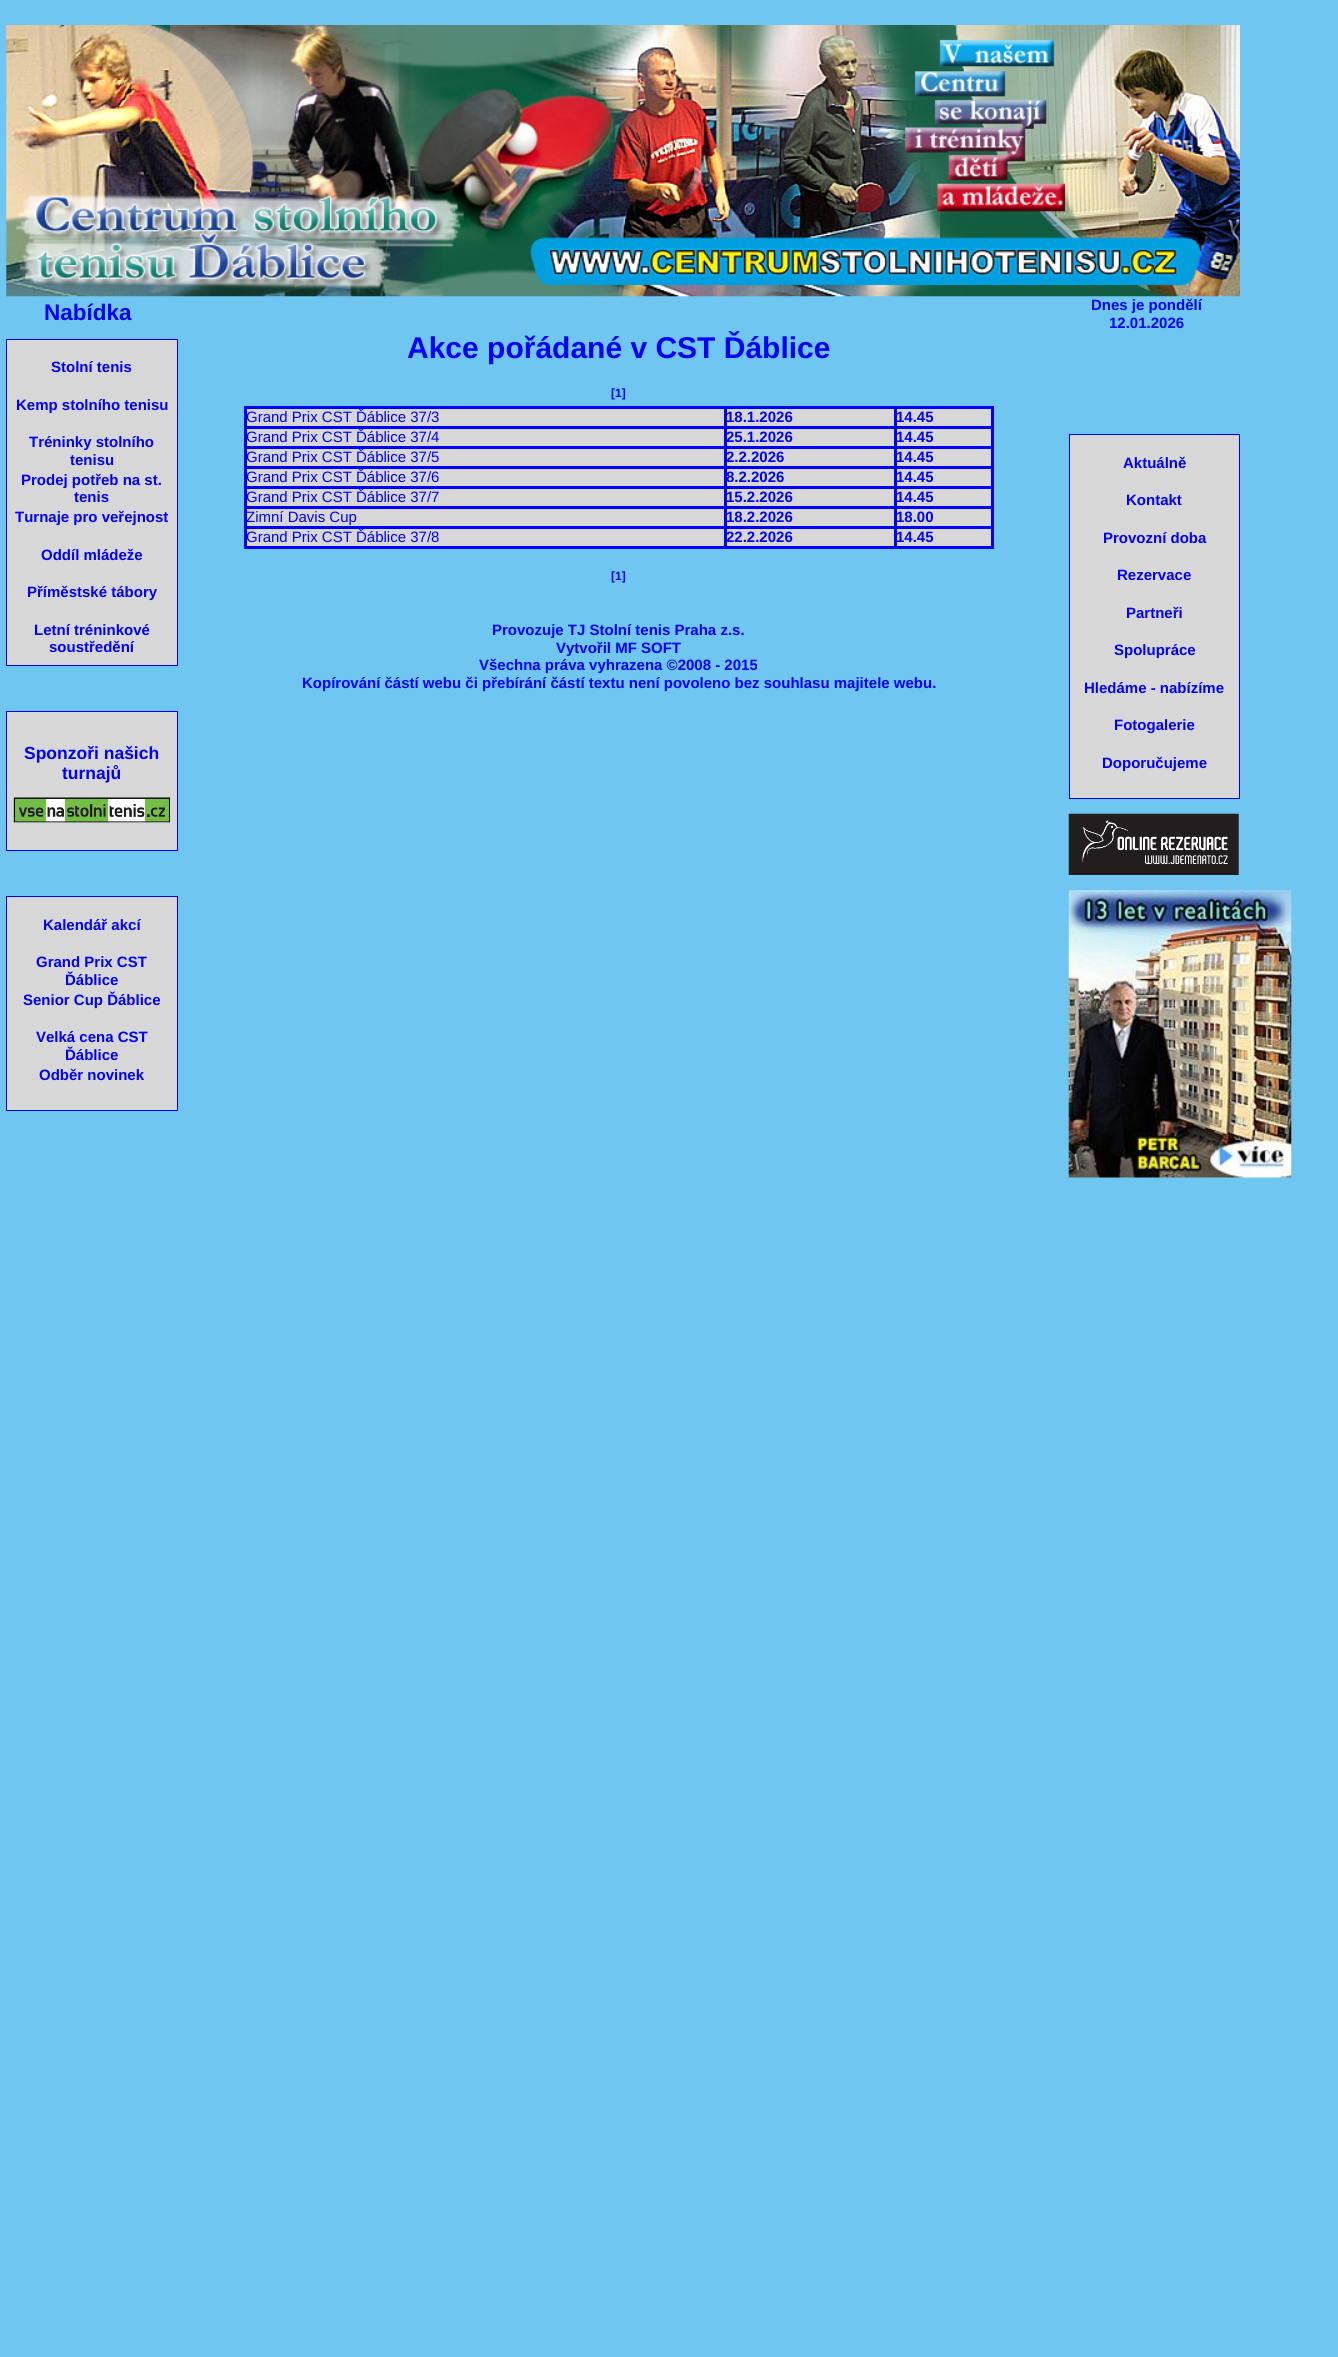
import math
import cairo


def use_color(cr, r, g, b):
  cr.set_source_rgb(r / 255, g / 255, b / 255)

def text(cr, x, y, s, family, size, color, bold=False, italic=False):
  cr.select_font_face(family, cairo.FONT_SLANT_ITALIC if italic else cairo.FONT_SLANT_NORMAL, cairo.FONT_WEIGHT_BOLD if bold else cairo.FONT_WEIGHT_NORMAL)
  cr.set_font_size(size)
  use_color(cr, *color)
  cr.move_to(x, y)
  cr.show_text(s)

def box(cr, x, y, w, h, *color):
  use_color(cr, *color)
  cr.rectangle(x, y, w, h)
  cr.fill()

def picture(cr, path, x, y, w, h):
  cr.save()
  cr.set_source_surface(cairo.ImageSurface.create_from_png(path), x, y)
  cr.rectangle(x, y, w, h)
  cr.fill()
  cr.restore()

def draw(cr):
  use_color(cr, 110, 198, 241)
  cr.paint()
  picture(cr, "img_01.png", 6, 25, 1234, 272)
  use_color(cr, 215, 215, 215)
  cr.rectangle(6.5, 339.5, 171, 326)
  cr.fill_preserve()
  use_color(cr, 0, 0, 255)
  cr.set_line_width(1)
  cr.stroke()
  use_color(cr, 215, 215, 215)
  cr.rectangle(6.5, 711.5, 171, 139)
  cr.fill_preserve()
  use_color(cr, 0, 0, 255)
  cr.stroke()
  picture(cr, "img_02.png", 13, 797, 157, 26)
  use_color(cr, 215, 215, 215)
  cr.rectangle(6.5, 896.5, 171, 214)
  cr.fill_preserve()
  use_color(cr, 0, 0, 255)
  cr.stroke()
  box(cr, 247, 409, 744, 137, 215, 215, 215)
  box(cr, 244, 406, 750, 3, 0, 0, 255)
  box(cr, 991, 406, 3, 143, 0, 0, 255)
  box(cr, 244, 546, 750, 3, 0, 0, 255)
  box(cr, 244, 406, 3, 143, 0, 0, 255)
  box(cr, 244, 426, 750, 3, 0, 0, 255)
  box(cr, 244, 446, 750, 3, 0, 0, 255)
  box(cr, 244, 466, 750, 3, 0, 0, 255)
  box(cr, 244, 486, 750, 3, 0, 0, 255)
  box(cr, 244, 506, 750, 3, 0, 0, 255)
  box(cr, 244, 526, 750, 3, 0, 0, 255)
  box(cr, 724, 406, 3, 143, 0, 0, 255)
  box(cr, 894, 406, 3, 143, 0, 0, 255)
  use_color(cr, 215, 215, 215)
  cr.rectangle(1069.5, 434.5, 170, 364)
  cr.fill_preserve()
  use_color(cr, 0, 0, 255)
  cr.stroke()
  picture(cr, "img_03.png", 1068, 813, 171, 62)
  picture(cr, "img_04.png", 1068, 890, 224, 288)
  text(cr, 44, 320, "Nabídka", "Liberation Sans", 22.5, (0, 0, 255), bold=True)
  text(cr, 51, 372, "Stolní tenis", "Liberation Sans", 15, (0, 0, 255), bold=True)
  text(cr, 16, 410, "Kemp stolního tenisu", "Liberation Sans", 15, (0, 0, 255), bold=True)
  text(cr, 29, 447, "Tréninky stolního", "Liberation Sans", 15, (0, 0, 255), bold=True)
  text(cr, 70, 465, "tenisu", "Liberation Sans", 15, (0, 0, 255), bold=True)
  text(cr, 21, 485, "Prodej potřeb na st.", "Liberation Sans", 15, (0, 0, 255), bold=True)
  text(cr, 74, 502, "tenis", "Liberation Sans", 15, (0, 0, 255), bold=True)
  text(cr, 15, 522, "Turnaje pro veřejnost", "Liberation Sans", 15, (0, 0, 255), bold=True)
  text(cr, 41, 560, "Oddíl mládeže", "Liberation Sans", 15, (0, 0, 255), bold=True)
  text(cr, 27, 597, "Příměstské tábory", "Liberation Sans", 15, (0, 0, 255), bold=True)
  text(cr, 34, 635, "Letní tréninkové", "Liberation Sans", 15, (0, 0, 255), bold=True)
  text(cr, 49, 652, "soustředění", "Liberation Sans", 15, (0, 0, 255), bold=True)
  text(cr, 24, 759, "Sponzoři našich", "Liberation Sans", 17.5, (0, 0, 255), bold=True)
  text(cr, 62, 779, "turnajů", "Liberation Sans", 17.5, (0, 0, 255), bold=True)
  text(cr, 43, 930, "Kalendář akcí", "Liberation Sans", 15, (0, 0, 255), bold=True)
  text(cr, 36, 967, "Grand Prix CST", "Liberation Sans", 15, (0, 0, 255), bold=True)
  text(cr, 65, 985, "Ďáblice", "Liberation Sans", 15, (0, 0, 255), bold=True)
  text(cr, 23, 1005, "Senior Cup Ďáblice", "Liberation Sans", 15, (0, 0, 255), bold=True)
  text(cr, 36, 1042, "Velká cena CST", "Liberation Sans", 15, (0, 0, 255), bold=True)
  text(cr, 65, 1060, "Ďáblice", "Liberation Sans", 15, (0, 0, 255), bold=True)
  text(cr, 39, 1080, "Odběr novinek", "Liberation Sans", 15, (0, 0, 255), bold=True)
  text(cr, 407, 358, "Akce pořádané v CST Ďáblice", "Liberation Sans", 30, (0, 0, 255), bold=True)
  text(cr, 611, 397, "[1]", "Liberation Sans", 12, (0, 0, 255), bold=True)
  text(cr, 246, 422, "Grand Prix CST Ďáblice 37/3", "Liberation Sans", 15, (0, 0, 255))
  text(cr, 726, 422, "18.1.2026", "Liberation Sans", 15, (0, 0, 255), bold=True)
  text(cr, 896, 422, "14.45", "Liberation Sans", 15, (0, 0, 255), bold=True)
  text(cr, 246, 442, "Grand Prix CST Ďáblice 37/4", "Liberation Sans", 15, (0, 0, 255))
  text(cr, 726, 442, "25.1.2026", "Liberation Sans", 15, (0, 0, 255), bold=True)
  text(cr, 896, 442, "14.45", "Liberation Sans", 15, (0, 0, 255), bold=True)
  text(cr, 246, 462, "Grand Prix CST Ďáblice 37/5", "Liberation Sans", 15, (0, 0, 255))
  text(cr, 726, 462, "2.2.2026", "Liberation Sans", 15, (0, 0, 255), bold=True)
  text(cr, 896, 462, "14.45", "Liberation Sans", 15, (0, 0, 255), bold=True)
  text(cr, 246, 482, "Grand Prix CST Ďáblice 37/6", "Liberation Sans", 15, (0, 0, 255))
  text(cr, 726, 482, "8.2.2026", "Liberation Sans", 15, (0, 0, 255), bold=True)
  text(cr, 896, 482, "14.45", "Liberation Sans", 15, (0, 0, 255), bold=True)
  text(cr, 246, 502, "Grand Prix CST Ďáblice 37/7", "Liberation Sans", 15, (0, 0, 255))
  text(cr, 726, 502, "15.2.2026", "Liberation Sans", 15, (0, 0, 255), bold=True)
  text(cr, 896, 502, "14.45", "Liberation Sans", 15, (0, 0, 255), bold=True)
  text(cr, 246, 522, "Zimní Davis Cup", "Liberation Sans", 15, (0, 0, 255))
  text(cr, 726, 522, "18.2.2026", "Liberation Sans", 15, (0, 0, 255), bold=True)
  text(cr, 896, 522, "18.00", "Liberation Sans", 15, (0, 0, 255), bold=True)
  text(cr, 246, 542, "Grand Prix CST Ďáblice 37/8", "Liberation Sans", 15, (0, 0, 255))
  text(cr, 726, 542, "22.2.2026", "Liberation Sans", 15, (0, 0, 255), bold=True)
  text(cr, 896, 542, "14.45", "Liberation Sans", 15, (0, 0, 255), bold=True)
  text(cr, 611, 580, "[1]", "Liberation Sans", 12, (0, 0, 255), bold=True)
  text(cr, 492, 635, "Provozuje TJ Stolní tenis Praha z.s.", "Liberation Sans", 15, (0, 0, 255), bold=True)
  text(cr, 556, 653, "Vytvořil MF SOFT", "Liberation Sans", 15, (0, 0, 255), bold=True)
  text(cr, 479, 670, "Všechna práva vyhrazena ©2008 - 2015", "Liberation Sans", 15, (0, 0, 255), bold=True)
  text(cr, 302, 688, "Kopírování částí webu či přebírání částí textu není povoleno bez souhlasu majitele webu.", "Liberation Sans", 15, (0, 0, 255), bold=True)
  text(cr, 1091, 310, "Dnes je pondělí", "Liberation Sans", 15, (0, 0, 255), bold=True)
  text(cr, 1109, 328, "12.01.2026", "Liberation Sans", 15, (0, 0, 255), bold=True)
  text(cr, 1123, 468, "Aktuálně", "Liberation Sans", 15, (0, 0, 255), bold=True)
  text(cr, 1126, 505, "Kontakt", "Liberation Sans", 15, (0, 0, 255), bold=True)
  text(cr, 1103, 543, "Provozní doba", "Liberation Sans", 15, (0, 0, 255), bold=True)
  text(cr, 1117, 580, "Rezervace", "Liberation Sans", 15, (0, 0, 255), bold=True)
  text(cr, 1126, 618, "Partneři", "Liberation Sans", 15, (0, 0, 255), bold=True)
  text(cr, 1114, 655, "Spolupráce", "Liberation Sans", 15, (0, 0, 255), bold=True)
  text(cr, 1084, 693, "Hledáme - nabízíme", "Liberation Sans", 15, (0, 0, 255), bold=True)
  text(cr, 1114, 730, "Fotogalerie", "Liberation Sans", 15, (0, 0, 255), bold=True)
  text(cr, 1102, 768, "Doporučujeme", "Liberation Sans", 15, (0, 0, 255), bold=True)


surface = cairo.ImageSurface(cairo.FORMAT_RGB24, 1338, 2357)
cr = cairo.Context(surface)
options = cairo.FontOptions()
options.set_hint_metrics(cairo.HINT_METRICS_OFF)
options.set_hint_style(cairo.HINT_STYLE_NONE)
cr.set_font_options(options)
cr.set_miter_limit(4)
draw(cr)
surface.write_to_png("out.png")
